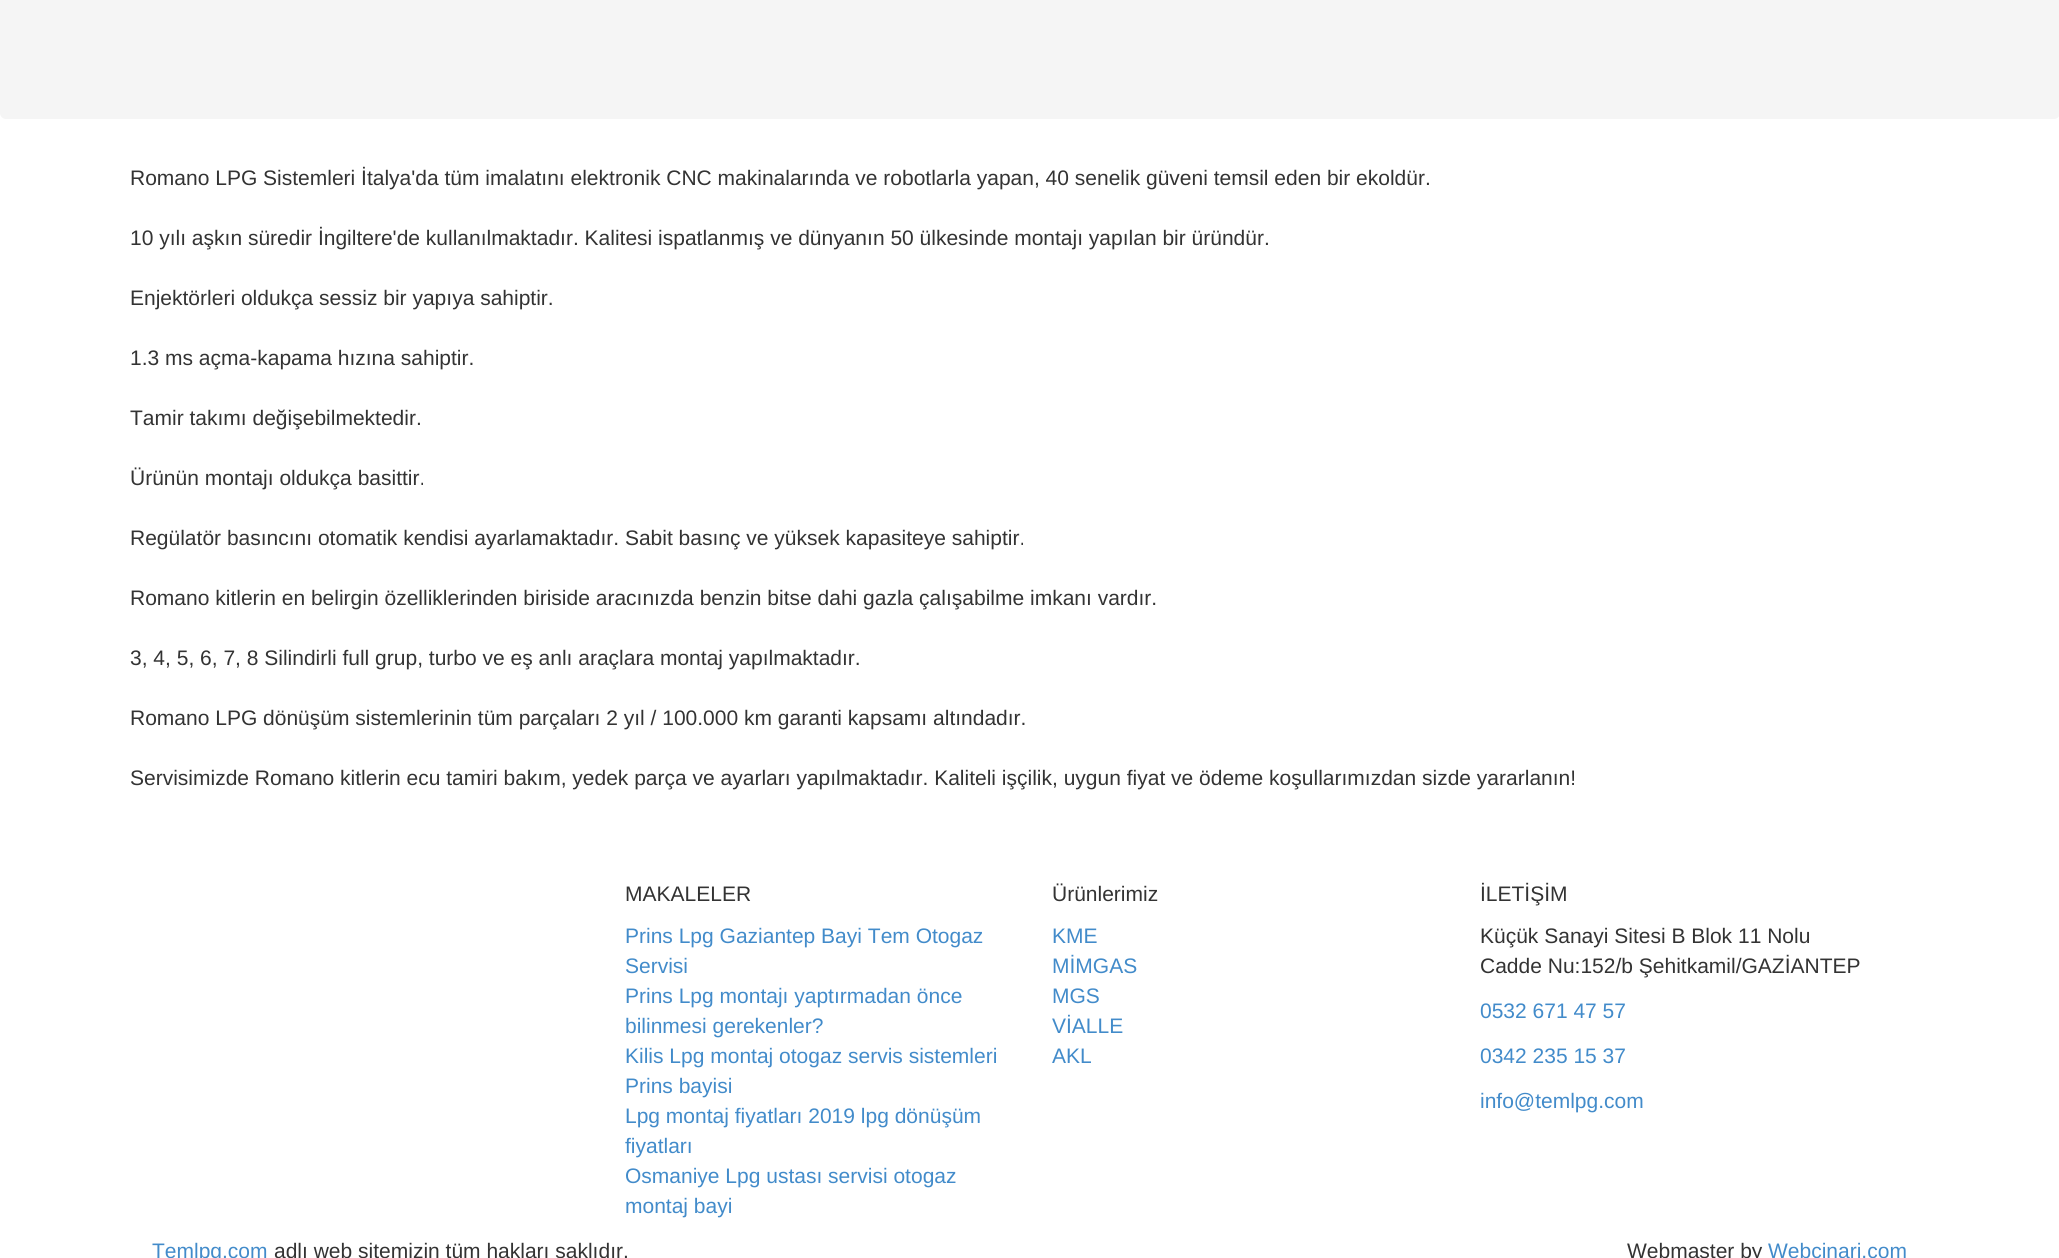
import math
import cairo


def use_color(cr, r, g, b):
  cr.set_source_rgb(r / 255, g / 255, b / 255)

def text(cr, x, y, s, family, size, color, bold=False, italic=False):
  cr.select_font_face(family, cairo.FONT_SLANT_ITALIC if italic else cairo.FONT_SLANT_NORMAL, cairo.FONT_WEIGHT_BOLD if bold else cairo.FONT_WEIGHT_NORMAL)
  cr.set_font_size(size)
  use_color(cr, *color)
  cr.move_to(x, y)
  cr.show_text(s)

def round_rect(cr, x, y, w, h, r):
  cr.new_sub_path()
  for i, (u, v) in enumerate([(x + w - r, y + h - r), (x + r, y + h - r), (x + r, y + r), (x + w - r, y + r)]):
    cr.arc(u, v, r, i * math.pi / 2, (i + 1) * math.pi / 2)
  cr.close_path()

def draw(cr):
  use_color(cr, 255, 255, 255)
  cr.paint()
  use_color(cr, 245, 245, 245)
  round_rect(cr, 0, -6, 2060, 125, 6)
  cr.fill()
  text(cr, 130, 185, "Romano LPG Sistemleri İtalya'da tüm imalatını elektronik CNC makinalarında ve robotlarla yapan, 40 senelik güveni temsil eden bir ekoldür.", "Liberation Sans", 21, (51, 51, 51))
  text(cr, 130, 245, "10 yılı aşkın süredir İngiltere'de kullanılmaktadır. Kalitesi ispatlanmış ve dünyanın 50 ülkesinde montajı yapılan bir üründür.", "Liberation Sans", 21, (51, 51, 51))
  text(cr, 130, 305, "Enjektörleri oldukça sessiz bir yapıya sahiptir.", "Liberation Sans", 21, (51, 51, 51))
  text(cr, 130, 365, "1.3 ms açma-kapama hızına sahiptir.", "Liberation Sans", 21, (51, 51, 51))
  text(cr, 130, 425, "Tamir takımı değişebilmektedir.", "Liberation Sans", 21, (51, 51, 51))
  text(cr, 130, 485, "Ürünün montajı oldukça basittir.", "Liberation Sans", 21, (51, 51, 51))
  text(cr, 130, 545, "Regülatör basıncını otomatik kendisi ayarlamaktadır. Sabit basınç ve yüksek kapasiteye sahiptir.", "Liberation Sans", 21, (51, 51, 51))
  text(cr, 130, 605, "Romano kitlerin en belirgin özelliklerinden biriside aracınızda benzin bitse dahi gazla çalışabilme imkanı vardır.", "Liberation Sans", 21, (51, 51, 51))
  text(cr, 130, 665, "3, 4, 5, 6, 7, 8 Silindirli full grup, turbo ve eş anlı araçlara montaj yapılmaktadır.", "Liberation Sans", 21, (51, 51, 51))
  text(cr, 130, 725, "Romano LPG dönüşüm sistemlerinin tüm parçaları 2 yıl / 100.000 km garanti kapsamı altındadır.", "Liberation Sans", 21, (51, 51, 51))
  text(cr, 130, 785, "Servisimizde Romano kitlerin ecu tamiri bakım, yedek parça ve ayarları yapılmaktadır. Kaliteli işçilik, uygun fiyat ve ödeme koşullarımızdan sizde yararlanın!", "Liberation Sans", 21, (51, 51, 51))
  text(cr, 625, 901, "MAKALELER", "Liberation Sans", 21, (51, 51, 51))
  text(cr, 625, 943, "Prins Lpg Gaziantep Bayi Tem Otogaz", "Liberation Sans", 21, (66, 139, 202))
  text(cr, 625, 973, "Servisi", "Liberation Sans", 21, (66, 139, 202))
  text(cr, 625, 1003, "Prins Lpg montajı yaptırmadan önce", "Liberation Sans", 21, (66, 139, 202))
  text(cr, 625, 1033, "bilinmesi gerekenler?", "Liberation Sans", 21, (66, 139, 202))
  text(cr, 625, 1063, "Kilis Lpg montaj otogaz servis sistemleri", "Liberation Sans", 21, (66, 139, 202))
  text(cr, 625, 1093, "Prins bayisi", "Liberation Sans", 21, (66, 139, 202))
  text(cr, 625, 1123, "Lpg montaj fiyatları 2019 lpg dönüşüm", "Liberation Sans", 21, (66, 139, 202))
  text(cr, 625, 1153, "fiyatları", "Liberation Sans", 21, (66, 139, 202))
  text(cr, 625, 1183, "Osmaniye Lpg ustası servisi otogaz", "Liberation Sans", 21, (66, 139, 202))
  text(cr, 625, 1213, "montaj bayi", "Liberation Sans", 21, (66, 139, 202))
  text(cr, 1052, 901, "Ürünlerimiz", "Liberation Sans", 21, (51, 51, 51))
  text(cr, 1052, 943, "KME", "Liberation Sans", 21, (66, 139, 202))
  text(cr, 1052, 973, "MİMGAS", "Liberation Sans", 21, (66, 139, 202))
  text(cr, 1052, 1003, "MGS", "Liberation Sans", 21, (66, 139, 202))
  text(cr, 1052, 1033, "VİALLE", "Liberation Sans", 21, (66, 139, 202))
  text(cr, 1052, 1063, "AKL", "Liberation Sans", 21, (66, 139, 202))
  text(cr, 1480, 901, "İLETİŞİM", "Liberation Sans", 21, (51, 51, 51))
  text(cr, 1480, 943, "Küçük Sanayi Sitesi B Blok 11 Nolu", "Liberation Sans", 21, (51, 51, 51))
  text(cr, 1480, 973, "Cadde Nu:152/b Şehitkamil/GAZİANTEP", "Liberation Sans", 21, (51, 51, 51))
  text(cr, 1480, 1018, "0532 671 47 57", "Liberation Sans", 21, (66, 139, 202))
  text(cr, 1480, 1063, "0342 235 15 37", "Liberation Sans", 21, (66, 139, 202))
  text(cr, 1480, 1108, "info@temlpg.com", "Liberation Sans", 21, (66, 139, 202))
  text(cr, 152, 1258, "Temlpg.com", "Liberation Sans", 21, (66, 139, 202))
  text(cr, 274, 1258, "adlı web sitemizin tüm hakları saklıdır.", "Liberation Sans", 21, (51, 51, 51))
  text(cr, 1627, 1258, "Webmaster by", "Liberation Sans", 21, (51, 51, 51))
  text(cr, 1768, 1258, "Webcinari.com", "Liberation Sans", 21, (66, 139, 202))


surface = cairo.ImageSurface(cairo.FORMAT_RGB24, 2059, 1258)
cr = cairo.Context(surface)
options = cairo.FontOptions()
options.set_hint_metrics(cairo.HINT_METRICS_OFF)
options.set_hint_style(cairo.HINT_STYLE_NONE)
cr.set_font_options(options)
cr.set_miter_limit(4)
draw(cr)
surface.write_to_png("out.png")
